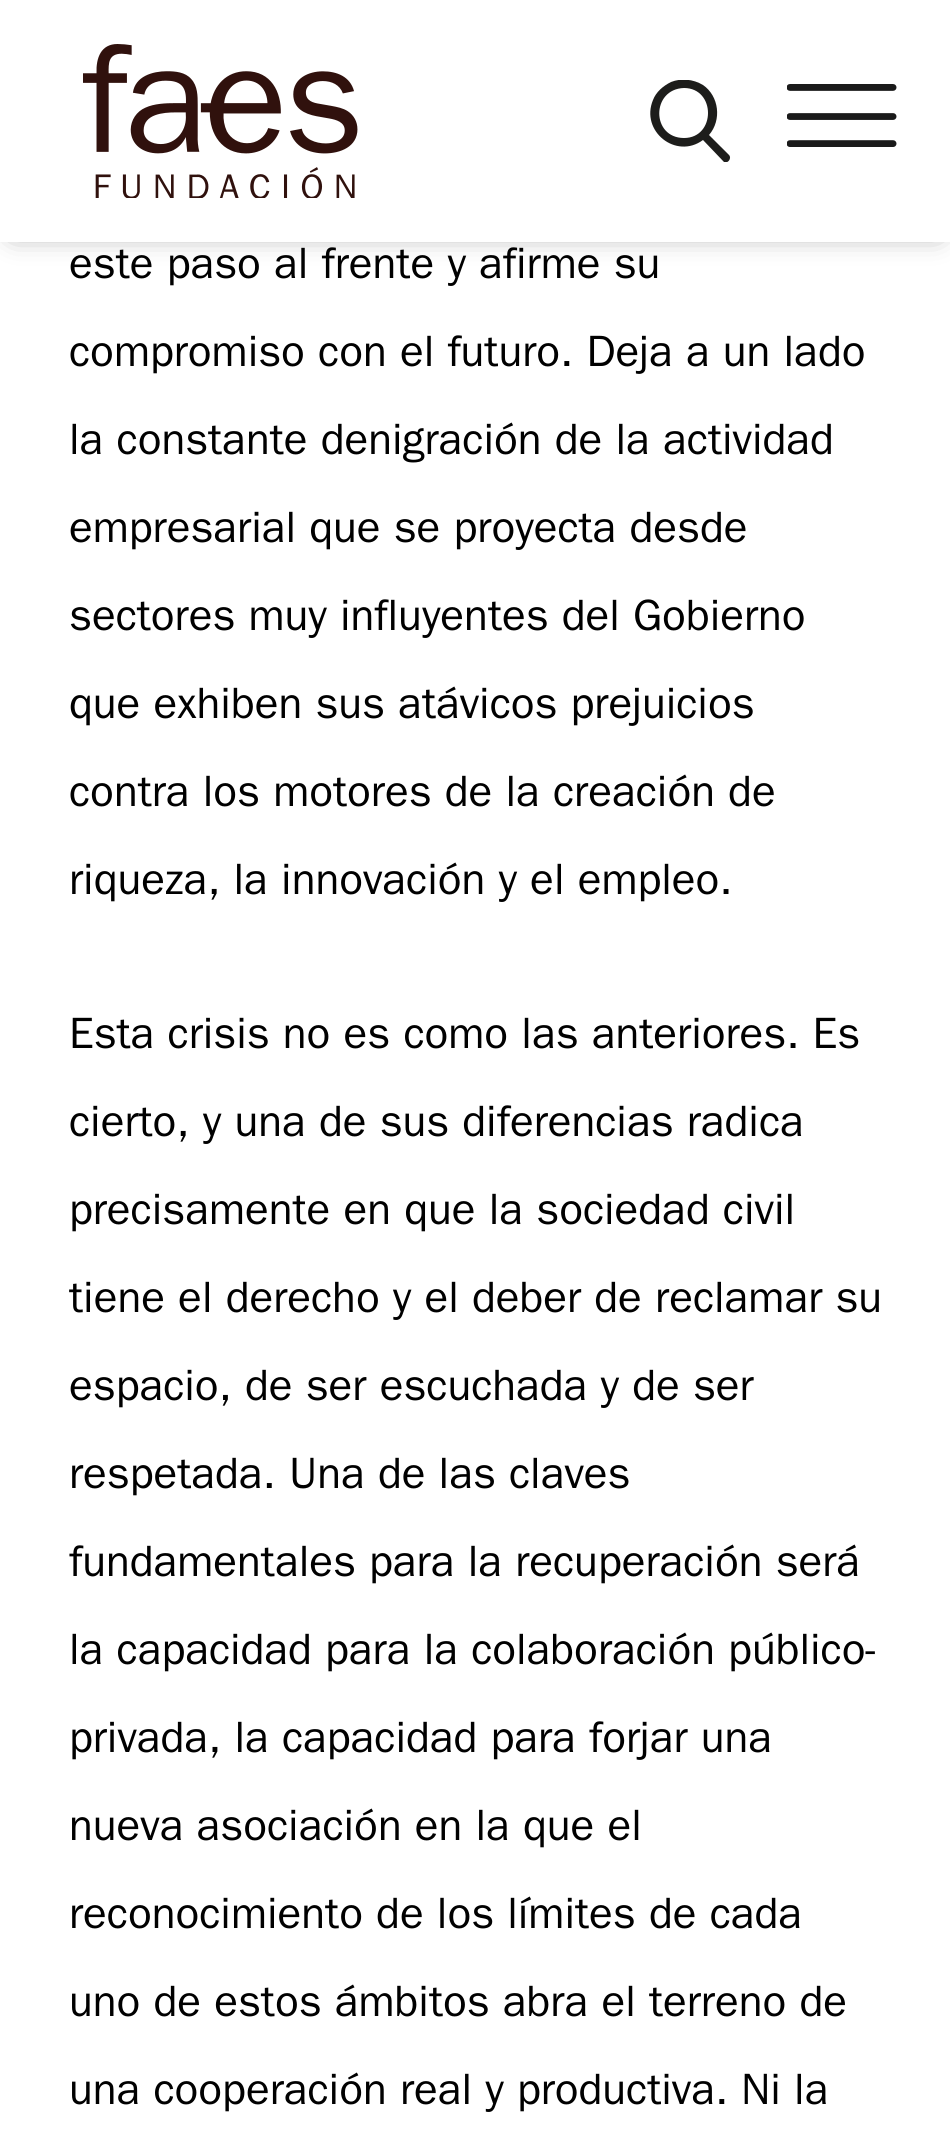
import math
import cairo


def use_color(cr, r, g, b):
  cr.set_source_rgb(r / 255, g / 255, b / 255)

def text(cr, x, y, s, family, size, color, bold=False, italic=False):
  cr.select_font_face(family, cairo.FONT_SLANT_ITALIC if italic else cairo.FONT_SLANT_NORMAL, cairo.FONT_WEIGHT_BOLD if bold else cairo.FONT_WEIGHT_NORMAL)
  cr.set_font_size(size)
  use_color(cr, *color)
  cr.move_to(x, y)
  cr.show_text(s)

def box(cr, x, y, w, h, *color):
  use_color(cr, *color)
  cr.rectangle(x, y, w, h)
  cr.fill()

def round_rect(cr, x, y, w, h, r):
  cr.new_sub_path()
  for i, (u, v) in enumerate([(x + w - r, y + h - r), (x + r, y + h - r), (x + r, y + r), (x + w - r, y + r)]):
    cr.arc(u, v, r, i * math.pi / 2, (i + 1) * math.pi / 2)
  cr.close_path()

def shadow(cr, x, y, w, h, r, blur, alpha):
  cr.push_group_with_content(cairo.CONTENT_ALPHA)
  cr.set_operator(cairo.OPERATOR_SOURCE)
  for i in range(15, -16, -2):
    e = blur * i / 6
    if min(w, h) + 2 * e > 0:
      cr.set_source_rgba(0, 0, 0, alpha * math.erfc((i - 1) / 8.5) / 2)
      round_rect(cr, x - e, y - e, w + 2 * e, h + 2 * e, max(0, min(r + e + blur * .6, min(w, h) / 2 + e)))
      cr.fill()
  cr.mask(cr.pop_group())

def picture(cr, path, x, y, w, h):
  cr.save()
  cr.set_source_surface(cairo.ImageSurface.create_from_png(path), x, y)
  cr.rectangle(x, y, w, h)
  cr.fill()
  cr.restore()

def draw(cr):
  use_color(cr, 255, 255, 255)
  cr.paint()
  use_color(cr, 0, 0, 0)
  shadow(cr, 14, 17, 924, 214, 0, 14, 0.52)
  box(cr, 0, 0, 950, 242, 255, 255, 255)
  picture(cr, "img_01.png", 83, 44, 275, 154)
  cr.save()
  cr.rectangle(649, 80, 83, 82)
  cr.clip()
  use_color(cr, 29, 29, 27)
  cr.new_path()
  cr.move_to(729, 155)
  cr.line_to(709, 135)
  cr.curve_to(722, 120, 719, 96, 703, 85)
  cr.curve_to(693, 79, 681, 78, 671, 82)
  cr.curve_to(663, 86, 656, 92, 653, 100)
  cr.curve_to(640, 131, 676, 160, 703, 140)
  cr.line_to(724, 162)
  cr.curve_to(728, 164, 732, 158, 729, 155)
  cr.close_path()
  cr.move_to(684, 88)
  cr.curve_to(716, 88, 716, 138, 684, 138)
  cr.curve_to(651, 138, 651, 89, 684, 88)
  cr.close_path()
  cr.fill()
  cr.restore()
  picture(cr, "img_02.png", 787, 84, 110, 63)
  text(cr, 69, 278, "este paso al frente y afirme su", "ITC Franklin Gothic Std", 44, (0, 0, 0))
  text(cr, 69, 366, "compromiso con el futuro. Deja a un lado", "ITC Franklin Gothic Std", 44, (0, 0, 0))
  text(cr, 69, 454, "la constante denigración de la actividad", "ITC Franklin Gothic Std", 44, (0, 0, 0))
  text(cr, 69, 542, "empresarial que se proyecta desde", "ITC Franklin Gothic Std", 44, (0, 0, 0))
  text(cr, 69, 630, "sectores muy influyentes del Gobierno", "ITC Franklin Gothic Std", 44, (0, 0, 0))
  text(cr, 69, 718, "que exhiben sus atávicos prejuicios", "ITC Franklin Gothic Std", 44, (0, 0, 0))
  text(cr, 69, 806, "contra los motores de la creación de", "ITC Franklin Gothic Std", 44, (0, 0, 0))
  text(cr, 69, 894, "riqueza, la innovación y el empleo.", "ITC Franklin Gothic Std", 44, (0, 0, 0))
  text(cr, 69, 1048, "Esta crisis no es como las anteriores. Es", "ITC Franklin Gothic Std", 44, (0, 0, 0))
  text(cr, 69, 1136, "cierto, y una de sus diferencias radica", "ITC Franklin Gothic Std", 44, (0, 0, 0))
  text(cr, 69, 1224, "precisamente en que la sociedad civil", "ITC Franklin Gothic Std", 44, (0, 0, 0))
  text(cr, 69, 1312, "tiene el derecho y el deber de reclamar su", "ITC Franklin Gothic Std", 44, (0, 0, 0))
  text(cr, 69, 1400, "espacio, de ser escuchada y de ser", "ITC Franklin Gothic Std", 44, (0, 0, 0))
  text(cr, 69, 1488, "respetada. Una de las claves", "ITC Franklin Gothic Std", 44, (0, 0, 0))
  text(cr, 69, 1576, "fundamentales para la recuperación será", "ITC Franklin Gothic Std", 44, (0, 0, 0))
  text(cr, 69, 1664, "la capacidad para la colaboración público-", "ITC Franklin Gothic Std", 44, (0, 0, 0))
  text(cr, 69, 1752, "privada, la capacidad para forjar una", "ITC Franklin Gothic Std", 44, (0, 0, 0))
  text(cr, 69, 1840, "nueva asociación en la que el", "ITC Franklin Gothic Std", 44, (0, 0, 0))
  text(cr, 69, 1928, "reconocimiento de los límites de cada", "ITC Franklin Gothic Std", 44, (0, 0, 0))
  text(cr, 69, 2016, "uno de estos ámbitos abra el terreno de", "ITC Franklin Gothic Std", 44, (0, 0, 0))
  text(cr, 69, 2104, "una cooperación real y productiva. Ni la", "ITC Franklin Gothic Std", 44, (0, 0, 0))


surface = cairo.ImageSurface(cairo.FORMAT_RGB24, 950, 2155)
cr = cairo.Context(surface)
options = cairo.FontOptions()
options.set_hint_metrics(cairo.HINT_METRICS_OFF)
options.set_hint_style(cairo.HINT_STYLE_NONE)
cr.set_font_options(options)
cr.set_miter_limit(4)
draw(cr)
surface.write_to_png("out.png")
